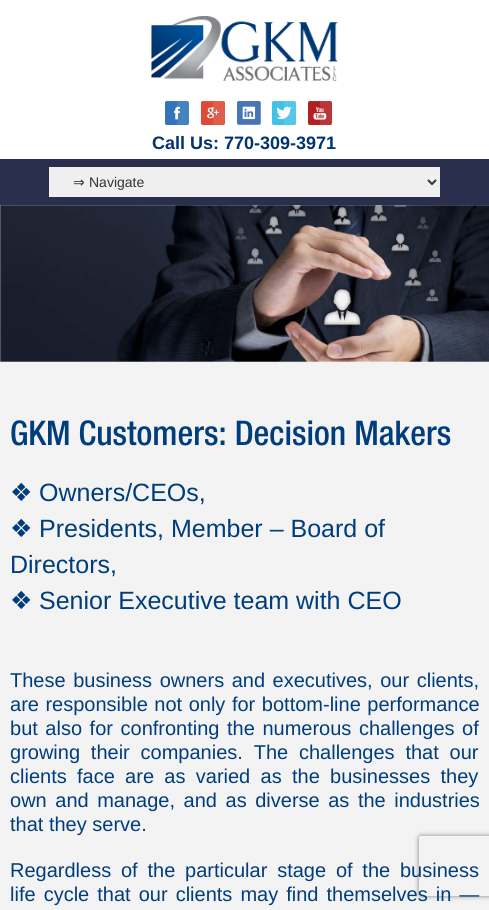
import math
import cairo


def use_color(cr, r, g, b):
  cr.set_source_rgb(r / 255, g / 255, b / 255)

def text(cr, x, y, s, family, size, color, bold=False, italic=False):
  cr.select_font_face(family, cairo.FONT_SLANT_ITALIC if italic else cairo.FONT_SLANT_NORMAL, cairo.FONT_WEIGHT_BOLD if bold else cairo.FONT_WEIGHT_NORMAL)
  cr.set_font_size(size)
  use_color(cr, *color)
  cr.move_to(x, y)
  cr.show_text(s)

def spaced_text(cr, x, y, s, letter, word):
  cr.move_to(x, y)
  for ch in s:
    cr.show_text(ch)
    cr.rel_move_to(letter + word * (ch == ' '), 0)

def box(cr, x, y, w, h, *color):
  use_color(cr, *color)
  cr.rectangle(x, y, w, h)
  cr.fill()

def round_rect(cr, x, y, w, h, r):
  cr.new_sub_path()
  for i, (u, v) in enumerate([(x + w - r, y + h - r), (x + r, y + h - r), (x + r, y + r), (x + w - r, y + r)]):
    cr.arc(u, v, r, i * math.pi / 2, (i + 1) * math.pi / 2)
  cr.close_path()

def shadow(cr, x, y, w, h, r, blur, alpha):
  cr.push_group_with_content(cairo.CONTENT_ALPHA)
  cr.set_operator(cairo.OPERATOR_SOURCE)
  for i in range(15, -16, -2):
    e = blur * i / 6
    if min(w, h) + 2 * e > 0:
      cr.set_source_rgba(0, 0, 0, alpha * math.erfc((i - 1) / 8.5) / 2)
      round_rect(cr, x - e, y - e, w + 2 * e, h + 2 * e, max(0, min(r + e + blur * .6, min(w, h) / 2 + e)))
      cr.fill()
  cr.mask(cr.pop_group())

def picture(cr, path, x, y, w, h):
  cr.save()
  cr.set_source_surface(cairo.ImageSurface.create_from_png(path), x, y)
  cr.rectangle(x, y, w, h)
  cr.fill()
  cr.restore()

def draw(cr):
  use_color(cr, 255, 255, 255)
  cr.paint()
  picture(cr, "img_01.png", 151, 16, 187, 65)
  picture(cr, "img_02.png", 165, 101, 24, 24)
  picture(cr, "img_03.png", 201, 101, 24, 24)
  picture(cr, "img_04.png", 237, 101, 24, 24)
  picture(cr, "img_05.png", 272, 101, 24, 24)
  picture(cr, "img_06.png", 308, 101, 24, 24)
  box(cr, 0, 159, 489, 46, 41, 47, 76)
  box(cr, 49, 167, 391, 30, 239, 239, 239)
  cr.new_path()
  cr.move_to(428, 180)
  cr.line_to(432, 184)
  cr.line_to(436, 180)
  use_color(cr, 51, 51, 51)
  cr.stroke()
  picture(cr, "img_07.png", 0, 205, 489, 157)
  box(cr, 0, 362, 489, 548, 243, 243, 243)
  cr.save()
  cr.set_fill_rule(cairo.FILL_RULE_EVEN_ODD)
  cr.new_path()
  cr.move_to(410, 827)
  cr.line_to(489, 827)
  cr.line_to(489, 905)
  cr.line_to(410, 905)
  cr.close_path()
  cr.move_to(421, 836)
  cr.line_to(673, 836)
  cr.curve_to(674, 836, 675, 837, 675, 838)
  cr.line_to(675, 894)
  cr.curve_to(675, 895, 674, 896, 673, 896)
  cr.line_to(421, 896)
  cr.curve_to(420, 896, 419, 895, 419, 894)
  cr.line_to(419, 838)
  cr.curve_to(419, 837, 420, 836, 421, 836)
  cr.close_path()
  cr.clip()
  use_color(cr, 128, 128, 128)
  shadow(cr, 419, 836, 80, 60, 2, 2.5, 1)
  cr.restore()
  text(cr, 152, 149, "Call Us: 770-309-3971", "Liberation Sans", 18, (0, 52, 113), bold=True)
  text(cr, 73, 187, "⇒", "DejaVu Sans", 14, (51, 51, 51))
  text(cr, 89, 187, "Navigate", "Liberation Sans", 14, (51, 51, 51))
  text(cr, 10, 445, "GKM Customers: Decision Makers", "Helvetica Neue Medium", 34, (0, 61, 124))
  text(cr, 10, 501, "❖", "DejaVu Sans", 25, (0, 61, 124))
  text(cr, 39, 501, "Owners/CEOs,", "Liberation Sans", 25, (0, 61, 124))
  text(cr, 10, 537, "❖", "DejaVu Sans", 25, (0, 61, 124))
  text(cr, 39, 537, "Presidents, Member – Board of", "Liberation Sans", 25, (0, 61, 124))
  text(cr, 10, 573, "Directors,", "Liberation Sans", 25, (0, 61, 124))
  text(cr, 10, 609, "❖", "DejaVu Sans", 25, (0, 61, 124))
  text(cr, 39, 609, "Senior Executive team with CEO", "Liberation Sans", 25, (0, 61, 124))
  cr.set_font_size(20)
  spaced_text(cr, 10, 687, "These business owners and executives, our clients,", 0, 2)
  spaced_text(cr, 10, 711, "are responsible not only for bottom-line performance", 0, 1)
  spaced_text(cr, 10, 735, "but also for confronting the numerous challenges of", 0, 2)
  spaced_text(cr, 10, 759, "growing their companies. The challenges that our", 0, 5.25)
  spaced_text(cr, 10, 783, "clients face are as varied as the businesses they", 0, 4.75)
  spaced_text(cr, 10, 807, "own and manage, and as diverse as the industries", 0, 3)
  text(cr, 10, 831, "that they serve.", "Liberation Sans", 20, (0, 61, 124))
  spaced_text(cr, 10, 877, "Regardless of the particular stage of the business", 0, 4.25)
  spaced_text(cr, 10, 901, "life cycle that our clients may find themselves in —", 0, 2.5)


surface = cairo.ImageSurface(cairo.FORMAT_RGB24, 489, 910)
cr = cairo.Context(surface)
options = cairo.FontOptions()
options.set_hint_metrics(cairo.HINT_METRICS_OFF)
options.set_hint_style(cairo.HINT_STYLE_NONE)
cr.set_font_options(options)
cr.set_miter_limit(4)
draw(cr)
surface.write_to_png("out.png")
